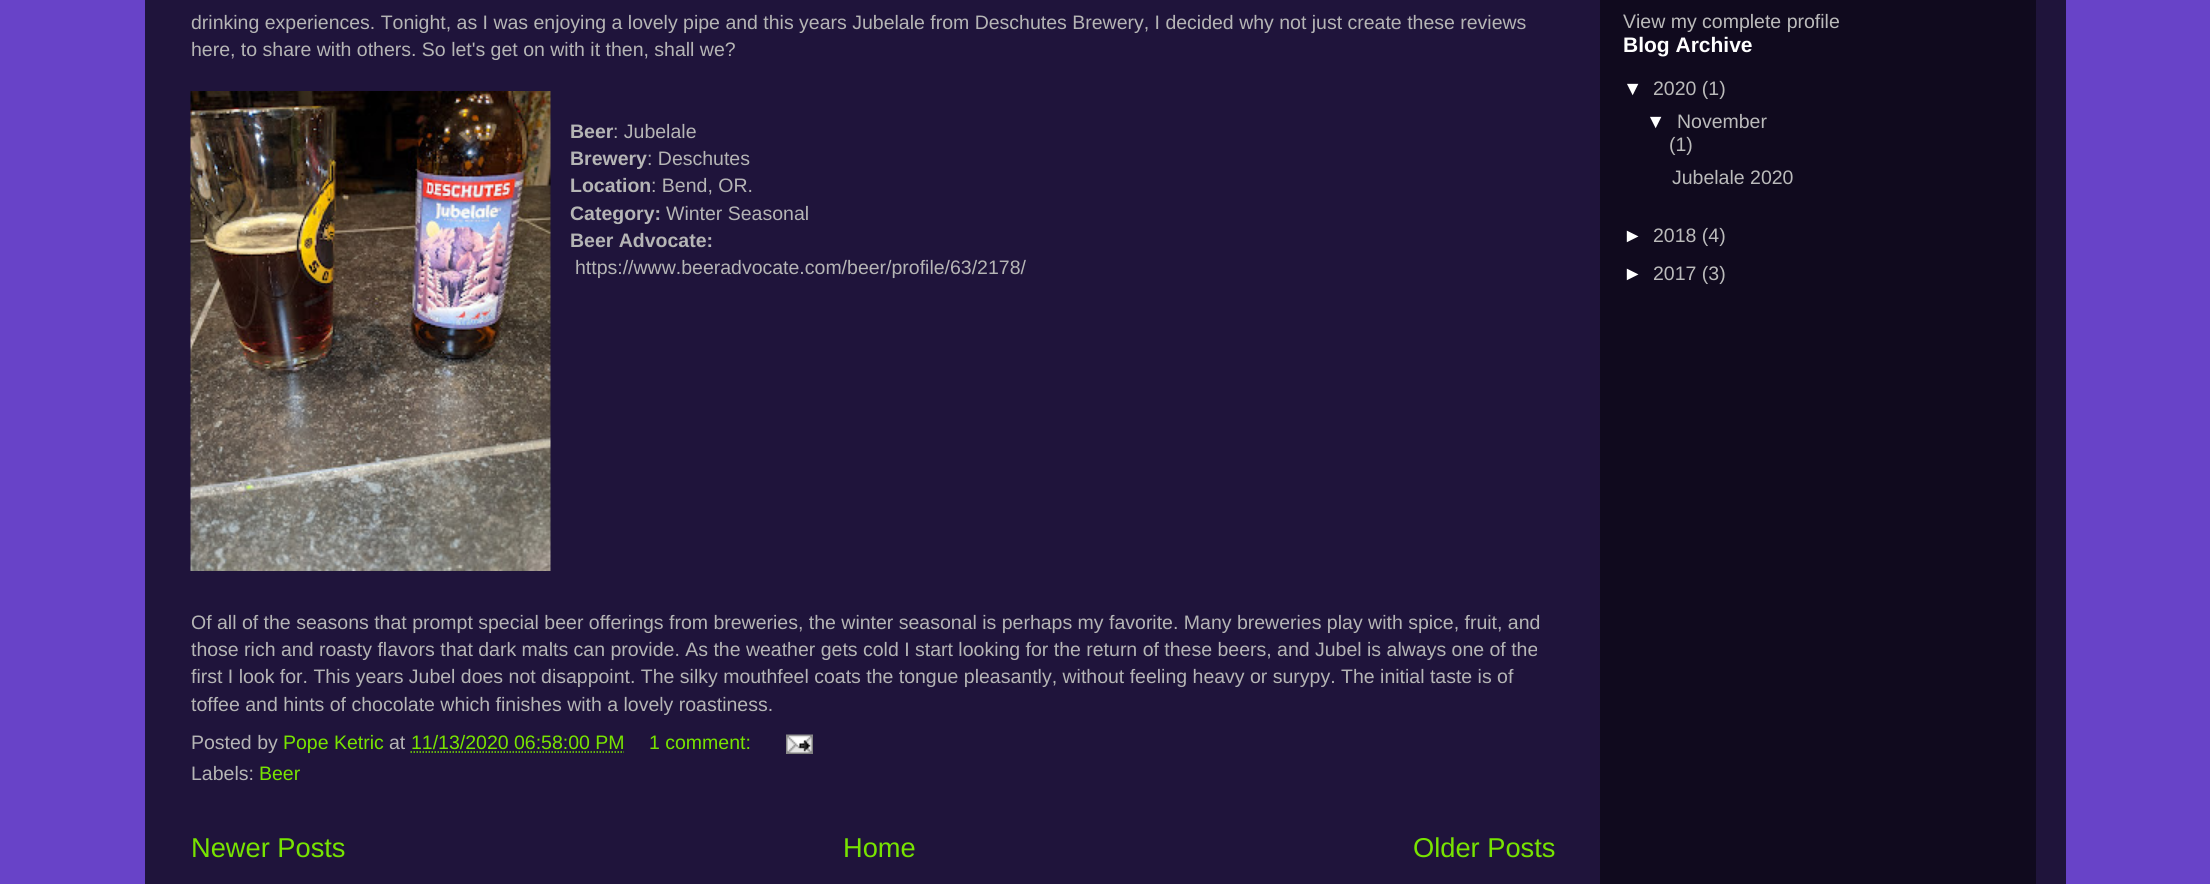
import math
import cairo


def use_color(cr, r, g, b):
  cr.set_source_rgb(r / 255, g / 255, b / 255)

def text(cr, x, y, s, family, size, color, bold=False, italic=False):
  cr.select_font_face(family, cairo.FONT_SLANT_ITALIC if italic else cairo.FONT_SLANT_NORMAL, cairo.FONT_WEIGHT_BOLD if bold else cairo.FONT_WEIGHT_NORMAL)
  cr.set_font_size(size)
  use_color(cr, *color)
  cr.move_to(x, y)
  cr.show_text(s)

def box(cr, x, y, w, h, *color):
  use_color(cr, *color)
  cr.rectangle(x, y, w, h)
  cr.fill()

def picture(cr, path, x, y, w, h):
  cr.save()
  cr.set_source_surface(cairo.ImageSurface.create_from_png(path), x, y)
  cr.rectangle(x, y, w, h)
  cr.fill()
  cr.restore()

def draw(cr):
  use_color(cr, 104, 67, 200)
  cr.paint()
  box(cr, 145, 0, 1921, 884, 31, 20, 59)
  box(cr, 1600, 0, 436, 884, 16, 10, 30)
  picture(cr, "img_01.png", 190, 91, 361, 480)
  cr.new_path()
  cr.move_to(410.5, 752)
  cr.line_to(624, 752)
  use_color(cr, 120, 228, 0)
  cr.set_line_width(1.5)
  cr.set_dash([1.5, 1.5])
  cr.stroke()
  picture(cr, "img_02.png", 786, 734, 27, 20)
  text(cr, 191, 29, "drinking experiences. Tonight, as I was enjoying a lovely pipe and this years Jubelale from Deschutes Brewery, I decided why not just create these reviews", "Liberation Sans", 19.5, (181, 181, 181))
  text(cr, 191, 56, "here, to share with others. So let's get on with it then, shall we?", "Liberation Sans", 19.5, (181, 181, 181))
  text(cr, 570, 138, "Beer", "Liberation Sans", 19.5, (181, 181, 181), bold=True)
  text(cr, 613, 138, ": Jubelale", "Liberation Sans", 19.5, (181, 181, 181))
  text(cr, 570, 165, "Brewery", "Liberation Sans", 19.5, (181, 181, 181), bold=True)
  text(cr, 647, 165, ": Deschutes", "Liberation Sans", 19.5, (181, 181, 181))
  text(cr, 570, 192, "Location", "Liberation Sans", 19.5, (181, 181, 181), bold=True)
  text(cr, 651, 192, ": Bend, OR.", "Liberation Sans", 19.5, (181, 181, 181))
  text(cr, 570, 220, "Category:", "Liberation Sans", 19.5, (181, 181, 181), bold=True)
  text(cr, 666, 220, "Winter Seasonal", "Liberation Sans", 19.5, (181, 181, 181))
  text(cr, 570, 247, "Beer Advocate:", "Liberation Sans", 19.5, (181, 181, 181), bold=True)
  text(cr, 575, 274, "https://www.beeradvocate.com/beer/profile/63/2178/", "Liberation Sans", 19.5, (181, 181, 181))
  text(cr, 191, 629, "Of all of the seasons that prompt special beer offerings from breweries, the winter seasonal is perhaps my favorite. Many breweries play with spice, fruit, and", "Liberation Sans", 19.5, (181, 181, 181))
  text(cr, 191, 656, "those rich and roasty flavors that dark malts can provide. As the weather gets cold I start looking for the return of these beers, and Jubel is always one of the", "Liberation Sans", 19.5, (181, 181, 181))
  text(cr, 191, 683, "first I look for. This years Jubel does not disappoint. The silky mouthfeel coats the tongue pleasantly, without feeling heavy or surypy. The initial taste is of", "Liberation Sans", 19.5, (181, 181, 181))
  text(cr, 191, 711, "toffee and hints of chocolate which finishes with a lovely roastiness.", "Liberation Sans", 19.5, (181, 181, 181))
  text(cr, 191, 749, "Posted by", "Liberation Sans", 19.5, (181, 181, 181))
  text(cr, 283, 749, "Pope Ketric", "Liberation Sans", 19.5, (120, 228, 0))
  text(cr, 389, 749, "at", "Liberation Sans", 19.5, (181, 181, 181))
  text(cr, 411, 749, "11/13/2020 06:58:00 PM", "Liberation Sans", 19.5, (120, 228, 0))
  text(cr, 649, 749, "1 comment:", "Liberation Sans", 19.5, (120, 228, 0))
  text(cr, 191, 780, "Labels:", "Liberation Sans", 19.5, (181, 181, 181))
  text(cr, 259, 780, "Beer", "Liberation Sans", 19.5, (120, 228, 0))
  text(cr, 191, 857, "Newer Posts", "Liberation Sans", 27.25, (120, 228, 0))
  text(cr, 843, 857, "Home", "Liberation Sans", 27.25, (120, 228, 0))
  text(cr, 1413, 857, "Older Posts", "Liberation Sans", 27.25, (120, 228, 0))
  text(cr, 1623, 28, "View my complete profile", "Liberation Sans", 19.5, (187, 187, 187))
  text(cr, 1623, 52, "Blog Archive", "Liberation Sans", 21, (255, 255, 255), bold=True)
  text(cr, 1623, 95, "▼", "Liberation Sans", 19.5, (255, 255, 255))
  text(cr, 1653, 95, "2020 (1)", "Liberation Sans", 19.5, (187, 187, 187))
  text(cr, 1646, 128, "▼", "Liberation Sans", 19.5, (255, 255, 255))
  text(cr, 1677, 128, "November", "Liberation Sans", 19.5, (187, 187, 187))
  text(cr, 1669, 151, "(1)", "Liberation Sans", 19.5, (187, 187, 187))
  text(cr, 1672, 184, "Jubelale 2020", "Liberation Sans", 19.5, (187, 187, 187))
  text(cr, 1623, 242, "►", "Liberation Sans", 19.5, (255, 255, 255))
  text(cr, 1653, 242, "2018 (4)", "Liberation Sans", 19.5, (187, 187, 187))
  text(cr, 1623, 280, "►", "Liberation Sans", 19.5, (255, 255, 255))
  text(cr, 1653, 280, "2017 (3)", "Liberation Sans", 19.5, (187, 187, 187))


surface = cairo.ImageSurface(cairo.FORMAT_RGB24, 2210, 884)
cr = cairo.Context(surface)
options = cairo.FontOptions()
options.set_hint_metrics(cairo.HINT_METRICS_OFF)
options.set_hint_style(cairo.HINT_STYLE_NONE)
cr.set_font_options(options)
cr.set_miter_limit(4)
draw(cr)
surface.write_to_png("out.png")
